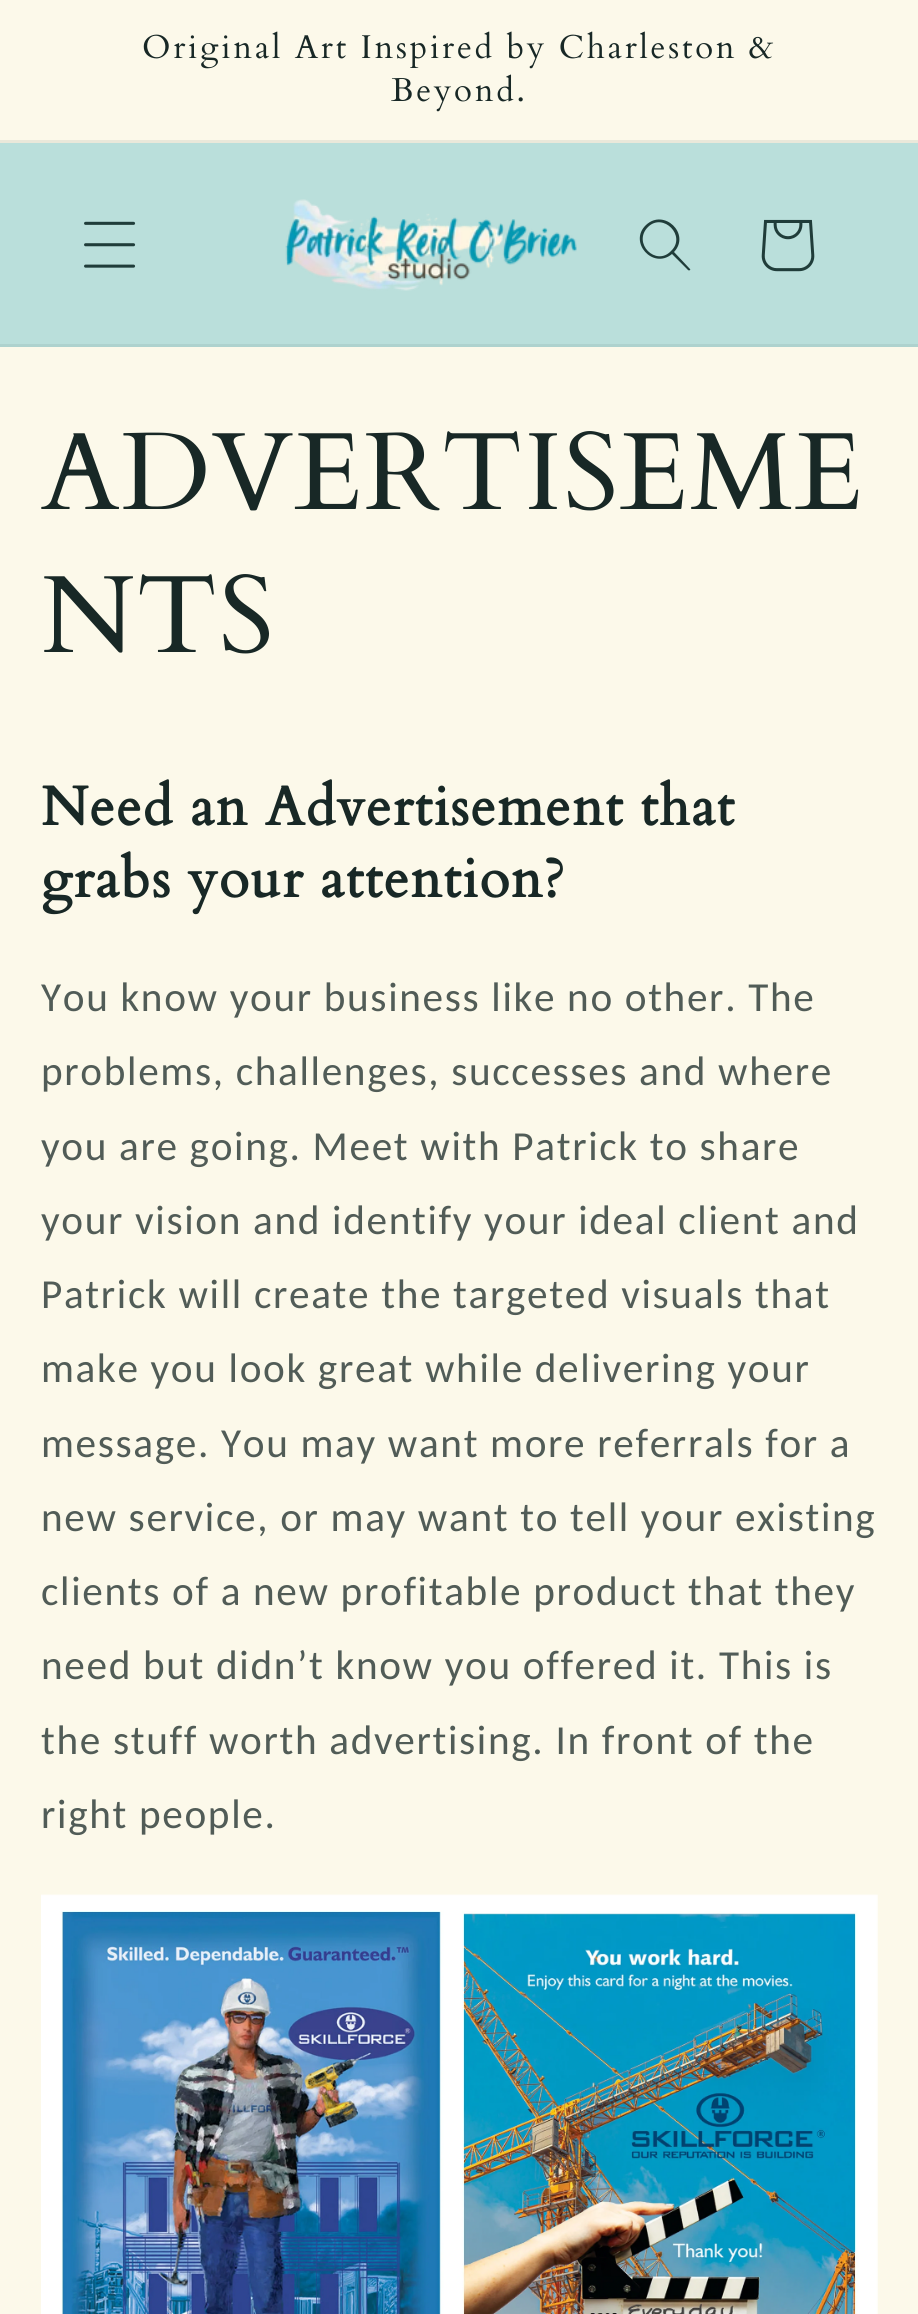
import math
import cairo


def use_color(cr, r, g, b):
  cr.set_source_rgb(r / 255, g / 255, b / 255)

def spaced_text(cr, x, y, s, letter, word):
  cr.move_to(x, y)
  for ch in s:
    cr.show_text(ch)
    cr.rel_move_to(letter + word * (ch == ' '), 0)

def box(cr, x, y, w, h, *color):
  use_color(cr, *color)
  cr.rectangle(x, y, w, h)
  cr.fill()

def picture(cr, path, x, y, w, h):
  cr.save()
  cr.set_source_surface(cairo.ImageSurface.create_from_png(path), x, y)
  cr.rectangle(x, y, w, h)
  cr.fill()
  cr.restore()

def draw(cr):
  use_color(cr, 252, 249, 234)
  cr.paint()
  box(cr, 0, 140, 918, 3, 234, 232, 218)
  box(cr, 0, 143, 918, 201, 186, 223, 219)
  box(cr, 0, 344, 918, 3, 174, 210, 206)
  picture(cr, "img_01.png", 84, 221, 52, 47)
  picture(cr, "img_02.png", 285, 199, 292, 92)
  use_color(cr, 32, 61, 58)
  cr.set_fill_rule(cairo.FILL_RULE_EVEN_ODD)
  cr.new_path()
  cr.move_to(671, 251)
  cr.curve_to(656, 267, 632, 243, 648, 227)
  cr.curve_to(663, 212, 687, 236, 671, 251)
  cr.move_to(672, 254)
  cr.curve_to(653, 270, 628, 242, 646, 225)
  cr.curve_to(664, 208, 691, 234, 674, 252)
  cr.line_to(690, 269)
  cr.curve_to(691, 270, 689, 271, 688, 270)
  cr.close_path()
  cr.fill()
  picture(cr, "img_03.png", 761, 219, 54, 53)
  picture(cr, "img_04.png", 41, 1894, 837, 420)
  cr.select_font_face("Cardo")
  cr.set_font_size(33)
  use_color(cr, 24, 40, 38)
  spaced_text(cr, 142, 58, "Original Art Inspired by Charleston &", 2.75, 0)
  spaced_text(cr, 391, 101, "Beyond.", 2.75, 0)
  cr.set_font_size(110)
  spaced_text(cr, 41, 509, "ADVERTISEME", 1.65, 0)
  spaced_text(cr, 41, 652, "NTS", 1.65, 0)
  cr.select_font_face("Cardo", cairo.FONT_SLANT_NORMAL, cairo.FONT_WEIGHT_BOLD)
  cr.set_font_size(55)
  spaced_text(cr, 41, 825, "Need an Advertisement that", 1.65, 0)
  spaced_text(cr, 41, 897, "grabs your attention?", 1.65, 0)
  cr.select_font_face("Carlito")
  cr.set_font_size(41.25)
  use_color(cr, 81, 92, 87)
  spaced_text(cr, 41, 1011, "You know your business like no other. The", 1.65, 0)
  spaced_text(cr, 41, 1085, "problems, challenges, successes and where", 1.65, 0)
  spaced_text(cr, 41, 1160, "you are going. Meet with Patrick to share", 1.65, 0)
  spaced_text(cr, 41, 1234, "your vision and identify your ideal client and", 1.65, 0)
  spaced_text(cr, 41, 1308, "Patrick will create the targeted visuals that", 1.65, 0)
  spaced_text(cr, 41, 1382, "make you look great while delivering your", 1.65, 0)
  spaced_text(cr, 41, 1457, "message. You may want more referrals for a", 1.65, 0)
  spaced_text(cr, 41, 1531, "new service, or may want to tell your existing", 1.65, 0)
  spaced_text(cr, 41, 1605, "clients of a new profitable product that they", 1.65, 0)
  spaced_text(cr, 41, 1679, "need but didn’t know you offered it. This is", 1.65, 0)
  spaced_text(cr, 41, 1754, "the stuff worth advertising. In front of the", 1.65, 0)
  spaced_text(cr, 41, 1828, "right people.", 1.65, 0)


surface = cairo.ImageSurface(cairo.FORMAT_RGB24, 918, 2314)
cr = cairo.Context(surface)
options = cairo.FontOptions()
options.set_hint_metrics(cairo.HINT_METRICS_OFF)
options.set_hint_style(cairo.HINT_STYLE_NONE)
cr.set_font_options(options)
cr.set_miter_limit(4)
draw(cr)
surface.write_to_png("out.png")
